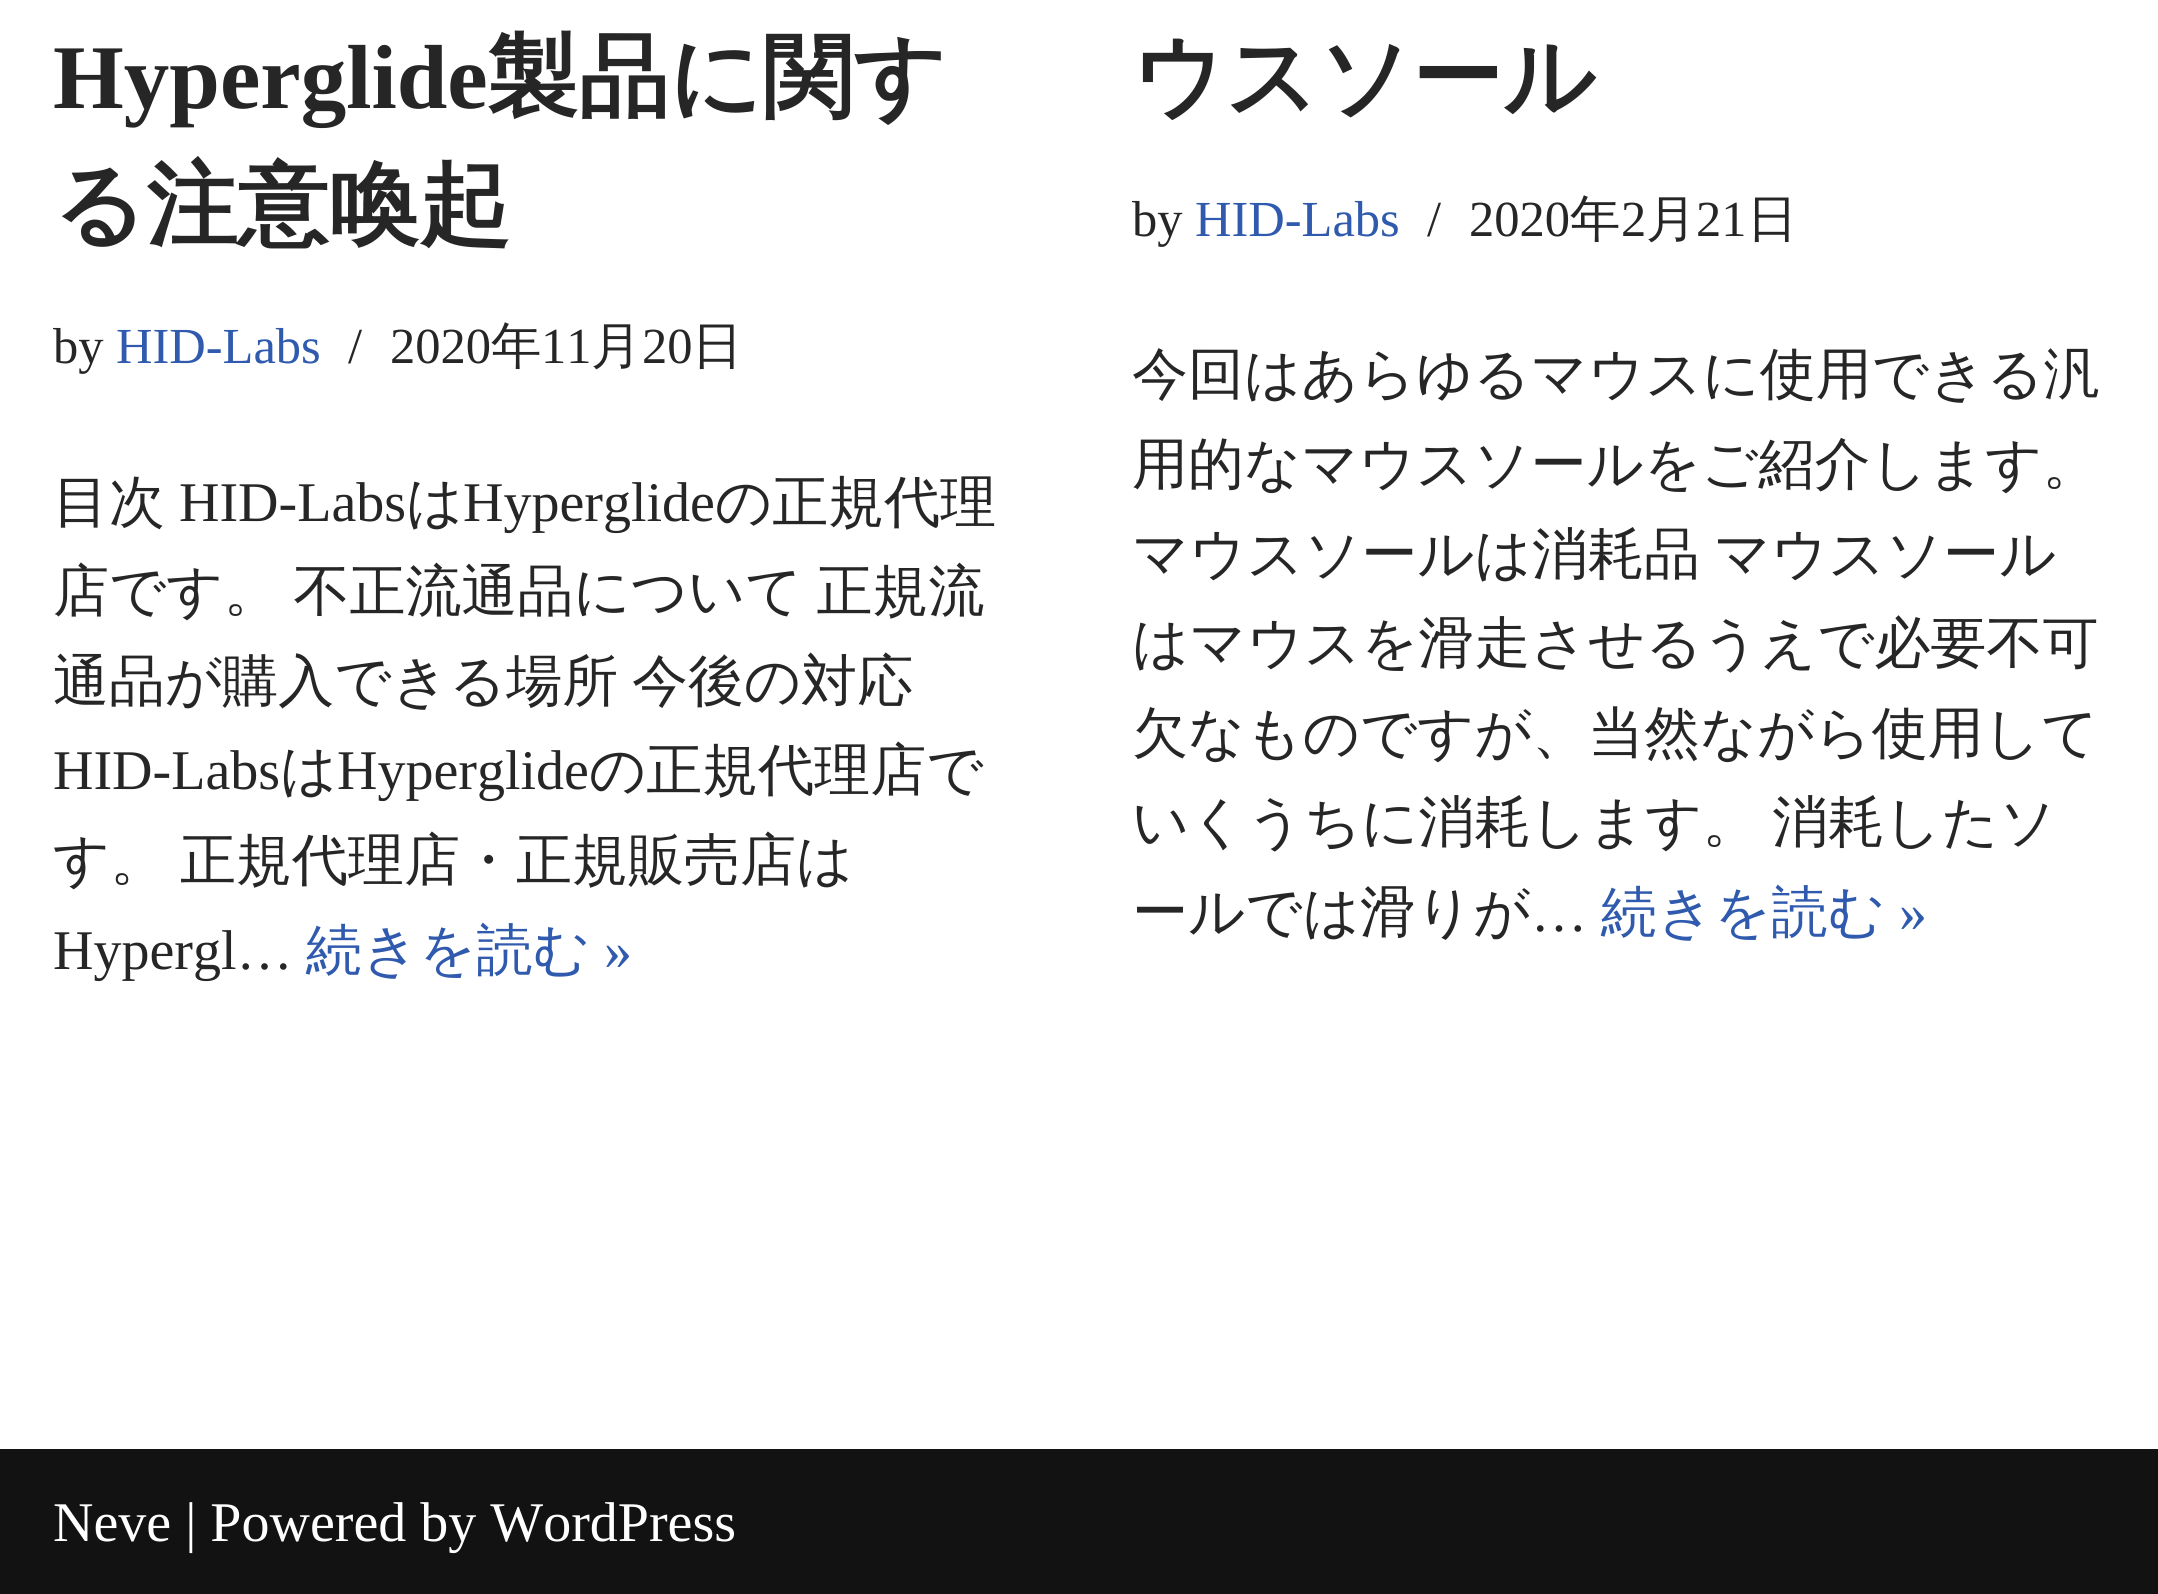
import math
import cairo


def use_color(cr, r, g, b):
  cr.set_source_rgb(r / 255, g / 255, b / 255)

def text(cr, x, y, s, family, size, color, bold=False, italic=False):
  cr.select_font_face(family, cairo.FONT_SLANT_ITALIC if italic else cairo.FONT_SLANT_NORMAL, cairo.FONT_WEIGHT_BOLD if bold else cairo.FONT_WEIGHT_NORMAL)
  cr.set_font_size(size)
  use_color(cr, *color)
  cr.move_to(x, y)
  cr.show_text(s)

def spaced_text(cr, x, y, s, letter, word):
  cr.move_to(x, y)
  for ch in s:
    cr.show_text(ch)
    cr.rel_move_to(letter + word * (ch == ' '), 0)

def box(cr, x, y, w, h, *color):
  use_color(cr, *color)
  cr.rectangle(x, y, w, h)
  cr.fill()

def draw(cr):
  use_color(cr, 255, 255, 255)
  cr.paint()
  box(cr, 0, 1449, 2158, 145, 18, 18, 18)
  text(cr, 53, 108, "Hyperglide", "Liberation Serif", 91, (39, 38, 38), bold=True)
  text(cr, 487, 108, "製品に関す", "WenQuanYi Zen Hei", 91, (39, 38, 38), bold=True)
  text(cr, 53, 236, "る注意喚起", "WenQuanYi Zen Hei", 91, (39, 38, 38), bold=True)
  text(cr, 53, 363, "by", "Liberation Serif", 50.5, (39, 38, 38))
  text(cr, 116, 363, "HID-Labs", "Liberation Serif", 50.5, (47, 90, 174))
  text(cr, 348, 363, "/", "Liberation Serif", 50.5, (39, 38, 38))
  text(cr, 390, 363, "2020", "Liberation Serif", 50.5, (39, 38, 38))
  text(cr, 491, 363, "年", "WenQuanYi Zen Hei Medium", 50.5, (39, 38, 38))
  text(cr, 541, 363, "11", "Liberation Serif", 50.5, (39, 38, 38))
  text(cr, 591, 363, "月", "WenQuanYi Zen Hei Medium", 50.5, (39, 38, 38))
  text(cr, 642, 363, "20", "Liberation Serif", 50.5, (39, 38, 38))
  text(cr, 692, 363, "日", "WenQuanYi Zen Hei Medium", 50.5, (39, 38, 38))
  text(cr, 53, 521, "目次", "WenQuanYi Zen Hei Medium", 56, (39, 38, 38))
  text(cr, 179, 521, "HID-Labs", "Liberation Serif", 56, (39, 38, 38))
  text(cr, 406, 521, "は", "WenQuanYi Zen Hei Medium", 56, (39, 38, 38))
  text(cr, 463, 521, "Hyperglide", "Liberation Serif", 56, (39, 38, 38))
  text(cr, 715, 521, "の正規代理", "WenQuanYi Zen Hei Medium", 56, (39, 38, 38))
  spaced_text(cr, 53, 610, "店です。 不正流通品について 正規流", 0, -3)
  spaced_text(cr, 53, 700, "通品が購入できる場所 今後の対応", 0, -3)
  text(cr, 53, 789, "HID-Labs", "Liberation Serif", 56, (39, 38, 38))
  text(cr, 280, 789, "は", "WenQuanYi Zen Hei Medium", 56, (39, 38, 38))
  text(cr, 337, 789, "Hyperglide", "Liberation Serif", 56, (39, 38, 38))
  text(cr, 589, 789, "の正規代理店で", "WenQuanYi Zen Hei Medium", 56, (39, 38, 38))
  spaced_text(cr, 53, 879, "す。 正規代理店・正規販売店は", 0, -3)
  text(cr, 53, 969, "Hypergl…", "Liberation Serif", 56, (39, 38, 38))
  text(cr, 306, 969, "続きを読む", "WenQuanYi Zen Hei Medium", 56, (47, 90, 174))
  text(cr, 604, 969, "»", "Liberation Serif", 56, (47, 90, 174))
  text(cr, 1132, 108, "ウスソール", "WenQuanYi Zen Hei", 91, (39, 38, 38), bold=True)
  text(cr, 1132, 236, "by", "Liberation Serif", 50.5, (39, 38, 38))
  text(cr, 1195, 236, "HID-Labs", "Liberation Serif", 50.5, (47, 90, 174))
  text(cr, 1427, 236, "/", "Liberation Serif", 50.5, (39, 38, 38))
  text(cr, 1469, 236, "2020", "Liberation Serif", 50.5, (39, 38, 38))
  text(cr, 1570, 236, "年", "WenQuanYi Zen Hei Medium", 50.5, (39, 38, 38))
  text(cr, 1621, 236, "2", "Liberation Serif", 50.5, (39, 38, 38))
  text(cr, 1646, 236, "月", "WenQuanYi Zen Hei Medium", 50.5, (39, 38, 38))
  text(cr, 1696, 236, "21", "Liberation Serif", 50.5, (39, 38, 38))
  text(cr, 1747, 236, "日", "WenQuanYi Zen Hei Medium", 50.5, (39, 38, 38))
  text(cr, 1132, 393, "今回はあらゆるマウスに使用できる汎", "WenQuanYi Zen Hei Medium", 56, (39, 38, 38))
  text(cr, 1132, 483, "用的なマウスソールをご紹介します。", "WenQuanYi Zen Hei Medium", 56, (39, 38, 38))
  spaced_text(cr, 1132, 573, "マウスソールは消耗品 マウスソール", 0, -3)
  text(cr, 1132, 662, "はマウスを滑走させるうえで必要不可", "WenQuanYi Zen Hei Medium", 56, (39, 38, 38))
  text(cr, 1132, 752, "欠なものですが、当然ながら使用して", "WenQuanYi Zen Hei Medium", 56, (39, 38, 38))
  spaced_text(cr, 1132, 841, "いくうちに消耗します。 消耗したソ", 0, -3)
  text(cr, 1132, 931, "ールでは滑りが", "WenQuanYi Zen Hei Medium", 56, (39, 38, 38))
  text(cr, 1531, 931, "…", "Liberation Serif", 56, (39, 38, 38))
  text(cr, 1601, 931, "続きを読む", "WenQuanYi Zen Hei Medium", 56, (47, 90, 174))
  text(cr, 1899, 931, "»", "Liberation Serif", 56, (47, 90, 174))
  text(cr, 53, 1541, "Neve | Powered by WordPress", "Liberation Serif", 56, (255, 255, 255))


surface = cairo.ImageSurface(cairo.FORMAT_RGB24, 2158, 1594)
cr = cairo.Context(surface)
options = cairo.FontOptions()
options.set_hint_metrics(cairo.HINT_METRICS_OFF)
options.set_hint_style(cairo.HINT_STYLE_NONE)
cr.set_font_options(options)
cr.set_miter_limit(4)
draw(cr)
surface.write_to_png("out.png")
